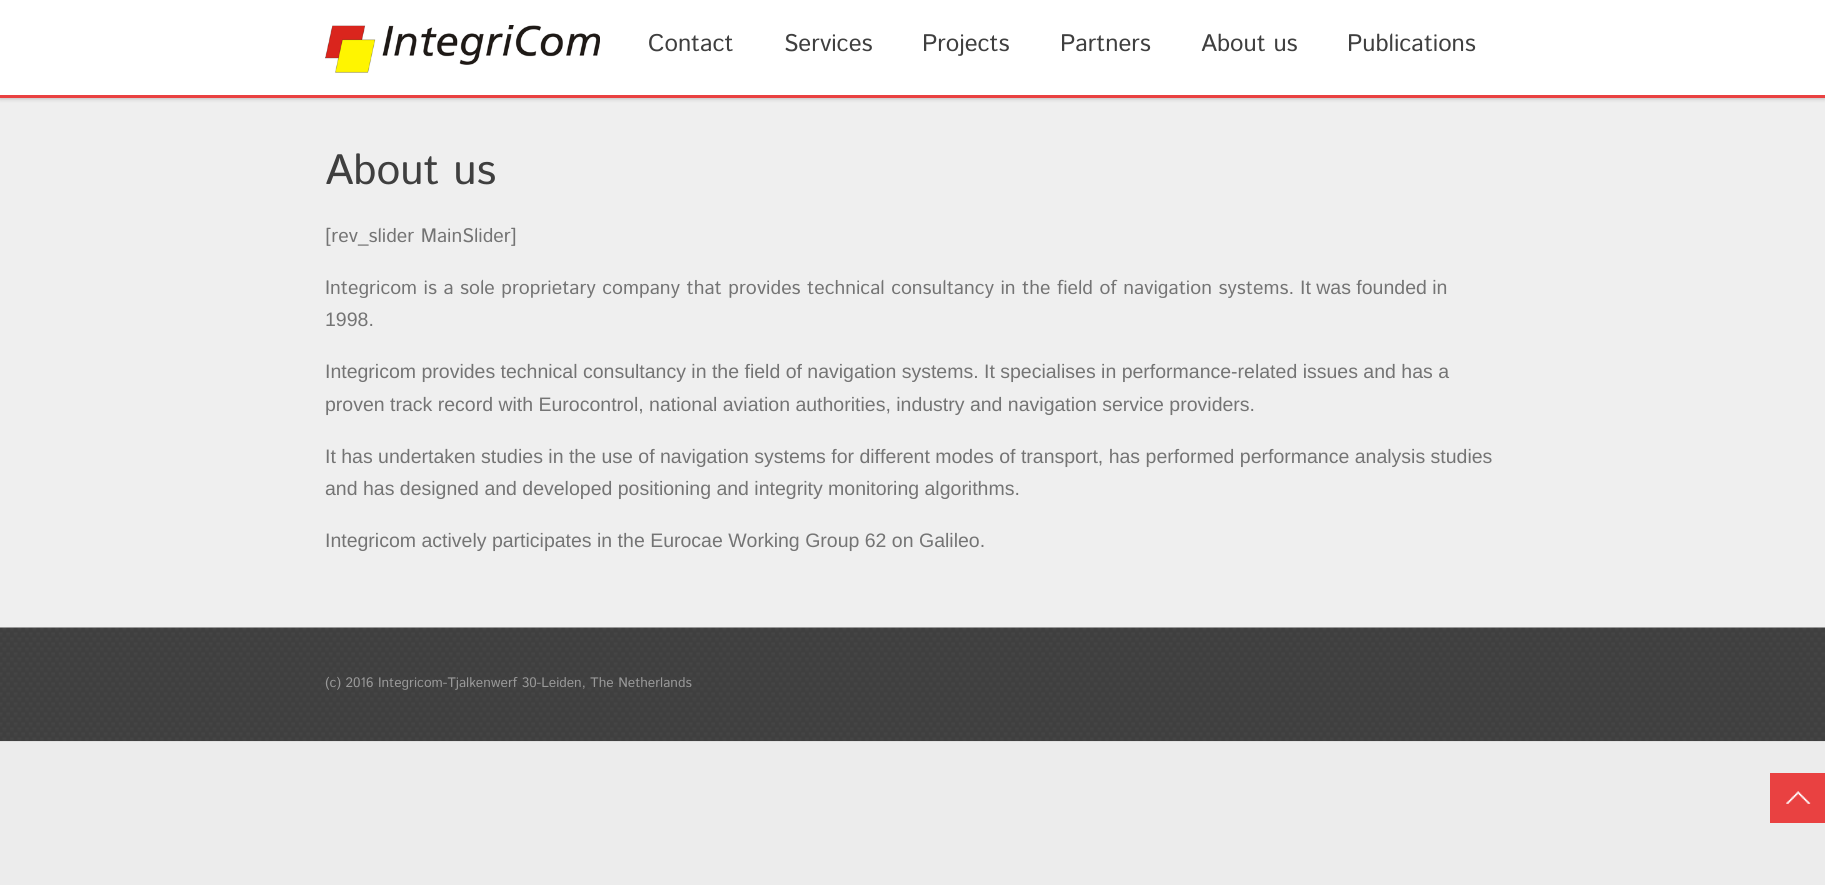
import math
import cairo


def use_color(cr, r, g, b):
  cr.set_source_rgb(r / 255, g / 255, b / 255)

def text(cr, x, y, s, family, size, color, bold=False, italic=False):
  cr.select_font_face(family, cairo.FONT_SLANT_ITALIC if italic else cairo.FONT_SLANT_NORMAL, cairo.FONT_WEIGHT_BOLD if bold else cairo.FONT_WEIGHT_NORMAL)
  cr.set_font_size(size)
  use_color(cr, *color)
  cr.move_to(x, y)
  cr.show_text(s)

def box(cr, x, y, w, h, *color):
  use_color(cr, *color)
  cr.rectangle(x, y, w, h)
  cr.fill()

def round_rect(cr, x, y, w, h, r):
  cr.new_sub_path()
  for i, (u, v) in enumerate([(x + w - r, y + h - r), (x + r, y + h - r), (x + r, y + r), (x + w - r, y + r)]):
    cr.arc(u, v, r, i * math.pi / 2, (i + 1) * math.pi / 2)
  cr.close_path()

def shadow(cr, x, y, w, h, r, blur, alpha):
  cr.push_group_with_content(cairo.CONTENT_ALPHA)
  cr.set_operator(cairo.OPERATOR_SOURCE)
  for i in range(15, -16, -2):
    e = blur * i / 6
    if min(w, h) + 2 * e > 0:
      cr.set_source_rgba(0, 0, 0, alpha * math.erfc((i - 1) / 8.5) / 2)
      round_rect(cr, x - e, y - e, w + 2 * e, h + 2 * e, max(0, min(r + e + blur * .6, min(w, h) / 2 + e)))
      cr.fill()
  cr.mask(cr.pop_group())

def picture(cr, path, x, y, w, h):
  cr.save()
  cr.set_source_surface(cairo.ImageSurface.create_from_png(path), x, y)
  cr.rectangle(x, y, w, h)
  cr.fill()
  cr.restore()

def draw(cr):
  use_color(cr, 236, 236, 236)
  cr.paint()
  box(cr, 0, 98, 1825, 530, 239, 239, 239)
  use_color(cr, 0, 0, 0)
  shadow(cr, 0, 0, 1825, 98, 0, 2.5, 0.3)
  box(cr, 0, 95, 1825, 3, 233, 65, 65)
  box(cr, 0, 0, 1825, 95, 255, 255, 255)
  picture(cr, "img_01.png", 325, 25, 275, 48)
  box(cr, 1770, 773, 55, 50, 233, 65, 65)
  picture(cr, "img_02.png", 1786, 791, 25, 13)
  picture(cr, "img_03.png", 0, 627, 1825, 115)
  text(cr, 648, 51, "Contact", "Istok Web", 24, (63, 63, 63))
  text(cr, 784, 51, "Services", "Istok Web", 24, (63, 63, 63))
  text(cr, 922, 51, "Projects", "Istok Web", 24, (63, 63, 63))
  text(cr, 1060, 51, "Partners", "Istok Web", 24, (63, 63, 63))
  text(cr, 1201, 51, "About us", "Istok Web", 24, (63, 63, 63))
  text(cr, 1347, 51, "Publications", "Istok Web", 24, (63, 63, 63))
  text(cr, 325, 184, "About us", "Istok Web", 42.5, (63, 63, 63))
  text(cr, 325, 242, "[rev_slider MainSlider]", "Istok Web", 19.5, (116, 116, 116))
  text(cr, 325, 294, "Integricom is a sole proprietary company that provides technical consultancy in the field of navigation systems.", "Istok Web", 19.5, (116, 116, 116))
  text(cr, 1300, 294, "It was founded in", "Liberation Sans", 19.5, (116, 116, 116))
  text(cr, 325, 326, "1998.", "Liberation Sans", 19.5, (116, 116, 116))
  text(cr, 325, 378, "Integricom provides technical consultancy in the field of navigation systems. It specialises in performance-related issues and has a", "Liberation Sans", 19.5, (116, 116, 116))
  text(cr, 325, 411, "proven track record with Eurocontrol, national aviation authorities, industry and navigation service providers.", "Liberation Sans", 19.5, (116, 116, 116))
  text(cr, 325, 463, "It has undertaken studies in the use of navigation systems for different modes of transport, has performed performance analysis studies", "Liberation Sans", 19.5, (116, 116, 116))
  text(cr, 325, 495, "and has designed and developed positioning and integrity monitoring algorithms.", "Liberation Sans", 19.5, (116, 116, 116))
  text(cr, 325, 547, "Integricom actively participates in the Eurocae Working Group 62 on Galileo.", "Liberation Sans", 19.5, (116, 116, 116))
  text(cr, 325, 687, "(c) 2016 Integricom-Tjalkenwerf 30-Leiden, The Netherlands", "Istok Web", 13.75, (153, 153, 153))


surface = cairo.ImageSurface(cairo.FORMAT_RGB24, 1825, 885)
cr = cairo.Context(surface)
options = cairo.FontOptions()
options.set_hint_metrics(cairo.HINT_METRICS_OFF)
options.set_hint_style(cairo.HINT_STYLE_NONE)
cr.set_font_options(options)
cr.set_miter_limit(4)
draw(cr)
surface.write_to_png("out.png")
